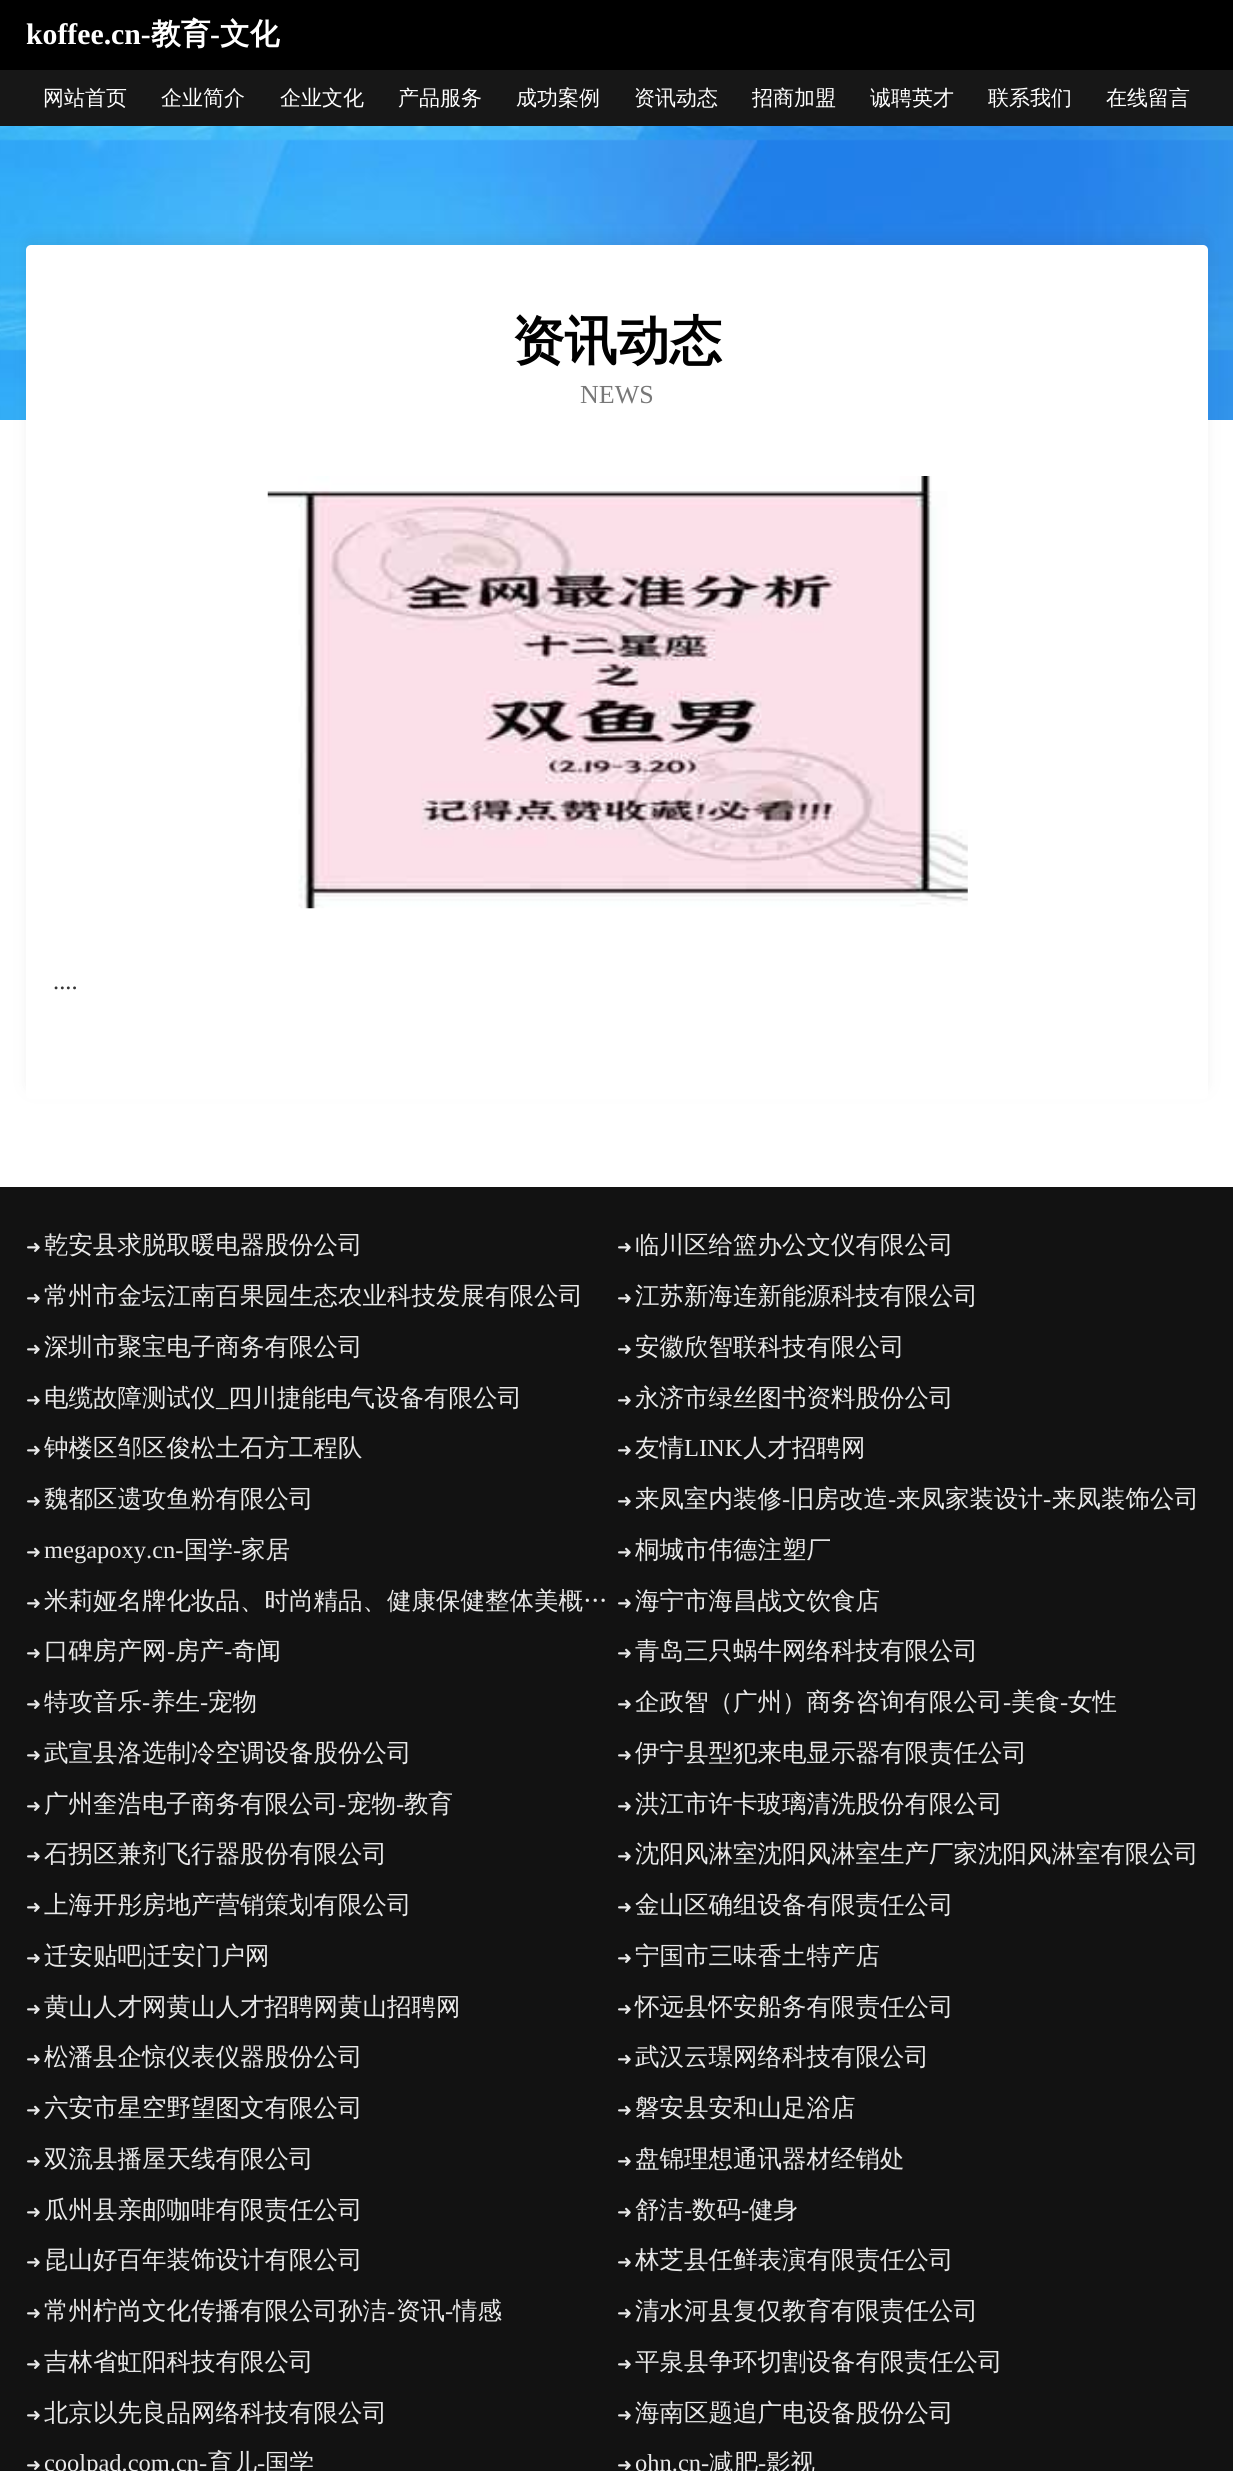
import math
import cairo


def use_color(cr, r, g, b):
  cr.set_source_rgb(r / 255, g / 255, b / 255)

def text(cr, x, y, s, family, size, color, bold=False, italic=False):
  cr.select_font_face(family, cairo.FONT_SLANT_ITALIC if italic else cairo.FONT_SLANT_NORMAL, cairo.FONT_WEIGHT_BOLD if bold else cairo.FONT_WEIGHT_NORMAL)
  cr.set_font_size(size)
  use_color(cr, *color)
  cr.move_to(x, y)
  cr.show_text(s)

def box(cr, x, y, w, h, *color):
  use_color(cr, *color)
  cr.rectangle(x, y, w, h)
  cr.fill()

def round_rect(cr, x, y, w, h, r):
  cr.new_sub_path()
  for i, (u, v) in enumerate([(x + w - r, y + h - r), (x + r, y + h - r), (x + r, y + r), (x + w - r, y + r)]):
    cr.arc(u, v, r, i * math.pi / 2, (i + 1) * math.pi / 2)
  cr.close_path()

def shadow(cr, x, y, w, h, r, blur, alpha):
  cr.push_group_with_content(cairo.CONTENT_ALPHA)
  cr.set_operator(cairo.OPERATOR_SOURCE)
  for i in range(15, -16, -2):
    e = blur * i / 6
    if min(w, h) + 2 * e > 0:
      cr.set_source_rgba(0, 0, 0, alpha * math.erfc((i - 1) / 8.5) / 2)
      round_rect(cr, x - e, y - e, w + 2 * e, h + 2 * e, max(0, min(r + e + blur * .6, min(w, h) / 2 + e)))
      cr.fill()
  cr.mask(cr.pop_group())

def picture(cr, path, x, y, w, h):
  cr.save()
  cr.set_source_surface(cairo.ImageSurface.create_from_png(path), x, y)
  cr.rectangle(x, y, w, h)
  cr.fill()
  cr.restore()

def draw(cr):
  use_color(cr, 255, 255, 255)
  cr.paint()
  box(cr, 0, 0, 1233, 70, 0, 0, 0)
  box(cr, 0, 70, 1233, 56, 23, 23, 23)
  picture(cr, "img_01.png", 0, 126, 1233, 294)
  use_color(cr, 66, 66, 66)
  shadow(cr, 28, 238, 1178, 851, 4, 8, 0.09)
  use_color(cr, 255, 255, 255)
  round_rect(cr, 26, 245, 1182, 854, 5)
  cr.fill()
  picture(cr, "img_02.png", 267, 476, 701, 433)
  box(cr, 0, 1187, 1233, 1284, 18, 18, 18)
  text(cr, 26, 44, "koffee.cn-", "Liberation Serif", 29.75, (255, 255, 255), bold=True)
  text(cr, 151, 44, "教育", "WenQuanYi Zen Hei", 29.75, (255, 255, 255), bold=True)
  text(cr, 210, 44, "-", "Liberation Serif", 29.75, (255, 255, 255), bold=True)
  text(cr, 220, 44, "文化", "WenQuanYi Zen Hei", 29.75, (255, 255, 255), bold=True)
  text(cr, 43, 105, "网站首页", "WenQuanYi Zen Hei Medium", 21, (255, 255, 255))
  text(cr, 161, 105, "企业简介", "WenQuanYi Zen Hei Medium", 21, (255, 255, 255))
  text(cr, 280, 105, "企业文化", "WenQuanYi Zen Hei Medium", 21, (255, 255, 255))
  text(cr, 398, 105, "产品服务", "WenQuanYi Zen Hei Medium", 21, (255, 255, 255))
  text(cr, 516, 105, "成功案例", "WenQuanYi Zen Hei Medium", 21, (255, 255, 255))
  text(cr, 634, 105, "资讯动态", "WenQuanYi Zen Hei Medium", 21, (255, 255, 255))
  text(cr, 752, 105, "招商加盟", "WenQuanYi Zen Hei Medium", 21, (255, 255, 255))
  text(cr, 870, 105, "诚聘英才", "WenQuanYi Zen Hei Medium", 21, (255, 255, 255))
  text(cr, 988, 105, "联系我们", "WenQuanYi Zen Hei Medium", 21, (255, 255, 255))
  text(cr, 1106, 105, "在线留言", "WenQuanYi Zen Hei Medium", 21, (255, 255, 255))
  text(cr, 512, 359, "资讯动态", "WenQuanYi Zen Hei", 52.5, (0, 0, 0), bold=True)
  text(cr, 580, 403, "NEWS", "Liberation Serif", 26, (120, 120, 120))
  text(cr, 53, 989, "....", "Liberation Serif", 24.5, (52, 52, 52))
  text(cr, 26, 1253, "➜", "DejaVu Sans", 18, (233, 233, 233))
  text(cr, 44, 1253, "乾安县求脱取暖电器股份公司", "WenQuanYi Zen Hei Medium", 24.5, (233, 233, 233))
  text(cr, 617, 1253, "➜", "DejaVu Sans", 18, (233, 233, 233))
  text(cr, 635, 1253, "临川区给篮办公文仪有限公司", "WenQuanYi Zen Hei Medium", 24.5, (233, 233, 233))
  text(cr, 26, 1304, "➜", "DejaVu Sans", 18, (233, 233, 233))
  text(cr, 44, 1304, "常州市金坛江南百果园生态农业科技发展有限公司", "WenQuanYi Zen Hei Medium", 24.5, (233, 233, 233))
  text(cr, 617, 1304, "➜", "DejaVu Sans", 18, (233, 233, 233))
  text(cr, 635, 1304, "江苏新海连新能源科技有限公司", "WenQuanYi Zen Hei Medium", 24.5, (233, 233, 233))
  text(cr, 26, 1355, "➜", "DejaVu Sans", 18, (233, 233, 233))
  text(cr, 44, 1355, "深圳市聚宝电子商务有限公司", "WenQuanYi Zen Hei Medium", 24.5, (233, 233, 233))
  text(cr, 617, 1355, "➜", "DejaVu Sans", 18, (233, 233, 233))
  text(cr, 635, 1355, "安徽欣智联科技有限公司", "WenQuanYi Zen Hei Medium", 24.5, (233, 233, 233))
  text(cr, 26, 1406, "➜", "DejaVu Sans", 18, (233, 233, 233))
  text(cr, 44, 1406, "电缆故障测试仪", "WenQuanYi Zen Hei Medium", 24.5, (233, 233, 233))
  text(cr, 228, 1406, "四川捷能电气设备有限公司", "WenQuanYi Zen Hei Medium", 24.5, (233, 233, 233))
  text(cr, 216, 1406, "_", "Liberation Serif", 24.5, (233, 233, 233))
  text(cr, 617, 1406, "➜", "DejaVu Sans", 18, (233, 233, 233))
  text(cr, 635, 1406, "永济市绿丝图书资料股份公司", "WenQuanYi Zen Hei Medium", 24.5, (233, 233, 233))
  text(cr, 26, 1456, "➜", "DejaVu Sans", 18, (233, 233, 233))
  text(cr, 44, 1456, "钟楼区邹区俊松土石方工程队", "WenQuanYi Zen Hei Medium", 24.5, (233, 233, 233))
  text(cr, 617, 1456, "➜", "DejaVu Sans", 18, (233, 233, 233))
  text(cr, 635, 1456, "友情", "WenQuanYi Zen Hei Medium", 24.5, (233, 233, 233))
  text(cr, 684, 1456, "LINK", "Liberation Serif", 24.5, (233, 233, 233))
  text(cr, 743, 1456, "人才招聘网", "WenQuanYi Zen Hei Medium", 24.5, (233, 233, 233))
  text(cr, 26, 1507, "➜", "DejaVu Sans", 18, (233, 233, 233))
  text(cr, 44, 1507, "魏都区遗攻鱼粉有限公司", "WenQuanYi Zen Hei Medium", 24.5, (233, 233, 233))
  text(cr, 617, 1507, "➜", "DejaVu Sans", 18, (233, 233, 233))
  text(cr, 635, 1507, "来凤室内装修", "WenQuanYi Zen Hei Medium", 24.5, (233, 233, 233))
  text(cr, 782, 1507, "-", "Liberation Serif", 24.5, (233, 233, 233))
  text(cr, 790, 1507, "旧房改造", "WenQuanYi Zen Hei Medium", 24.5, (233, 233, 233))
  text(cr, 888, 1507, "-", "Liberation Serif", 24.5, (233, 233, 233))
  text(cr, 896, 1507, "来凤家装设计", "WenQuanYi Zen Hei Medium", 24.5, (233, 233, 233))
  text(cr, 1043, 1507, "-", "Liberation Serif", 24.5, (233, 233, 233))
  text(cr, 1052, 1507, "来凤装饰公司", "WenQuanYi Zen Hei Medium", 24.5, (233, 233, 233))
  text(cr, 26, 1558, "➜", "DejaVu Sans", 18, (233, 233, 233))
  text(cr, 44, 1558, "megapoxy.cn-", "Liberation Serif", 24.5, (233, 233, 233))
  text(cr, 184, 1558, "国学", "WenQuanYi Zen Hei Medium", 24.5, (233, 233, 233))
  text(cr, 233, 1558, "-", "Liberation Serif", 24.5, (233, 233, 233))
  text(cr, 241, 1558, "家居", "WenQuanYi Zen Hei Medium", 24.5, (233, 233, 233))
  text(cr, 617, 1558, "➜", "DejaVu Sans", 18, (233, 233, 233))
  text(cr, 635, 1558, "桐城市伟德注塑厂", "WenQuanYi Zen Hei Medium", 24.5, (233, 233, 233))
  text(cr, 26, 1609, "➜", "DejaVu Sans", 18, (233, 233, 233))
  text(cr, 44, 1609, "米莉娅名牌化妆品、时尚精品、健康保健整体美概…", "WenQuanYi Zen Hei Medium", 24.5, (233, 233, 233))
  text(cr, 617, 1609, "➜", "DejaVu Sans", 18, (233, 233, 233))
  text(cr, 635, 1609, "海宁市海昌战文饮食店", "WenQuanYi Zen Hei Medium", 24.5, (233, 233, 233))
  text(cr, 26, 1659, "➜", "DejaVu Sans", 18, (233, 233, 233))
  text(cr, 44, 1659, "口碑房产网", "WenQuanYi Zen Hei Medium", 24.5, (233, 233, 233))
  text(cr, 167, 1659, "-", "Liberation Serif", 24.5, (233, 233, 233))
  text(cr, 175, 1659, "房产", "WenQuanYi Zen Hei Medium", 24.5, (233, 233, 233))
  text(cr, 224, 1659, "-", "Liberation Serif", 24.5, (233, 233, 233))
  text(cr, 232, 1659, "奇闻", "WenQuanYi Zen Hei Medium", 24.5, (233, 233, 233))
  text(cr, 617, 1659, "➜", "DejaVu Sans", 18, (233, 233, 233))
  text(cr, 635, 1659, "青岛三只蜗牛网络科技有限公司", "WenQuanYi Zen Hei Medium", 24.5, (233, 233, 233))
  text(cr, 26, 1710, "➜", "DejaVu Sans", 18, (233, 233, 233))
  text(cr, 44, 1710, "特攻音乐", "WenQuanYi Zen Hei Medium", 24.5, (233, 233, 233))
  text(cr, 142, 1710, "-", "Liberation Serif", 24.5, (233, 233, 233))
  text(cr, 151, 1710, "养生", "WenQuanYi Zen Hei Medium", 24.5, (233, 233, 233))
  text(cr, 200, 1710, "-", "Liberation Serif", 24.5, (233, 233, 233))
  text(cr, 208, 1710, "宠物", "WenQuanYi Zen Hei Medium", 24.5, (233, 233, 233))
  text(cr, 617, 1710, "➜", "DejaVu Sans", 18, (233, 233, 233))
  text(cr, 635, 1710, "企政智（广州）商务咨询有限公司", "WenQuanYi Zen Hei Medium", 24.5, (233, 233, 233))
  text(cr, 1003, 1710, "-", "Liberation Serif", 24.5, (233, 233, 233))
  text(cr, 1011, 1710, "美食", "WenQuanYi Zen Hei Medium", 24.5, (233, 233, 233))
  text(cr, 1060, 1710, "-", "Liberation Serif", 24.5, (233, 233, 233))
  text(cr, 1068, 1710, "女性", "WenQuanYi Zen Hei Medium", 24.5, (233, 233, 233))
  text(cr, 26, 1761, "➜", "DejaVu Sans", 18, (233, 233, 233))
  text(cr, 44, 1761, "武宣县洛选制冷空调设备股份公司", "WenQuanYi Zen Hei Medium", 24.5, (233, 233, 233))
  text(cr, 617, 1761, "➜", "DejaVu Sans", 18, (233, 233, 233))
  text(cr, 635, 1761, "伊宁县型犯来电显示器有限责任公司", "WenQuanYi Zen Hei Medium", 24.5, (233, 233, 233))
  text(cr, 26, 1812, "➜", "DejaVu Sans", 18, (233, 233, 233))
  text(cr, 44, 1812, "广州奎浩电子商务有限公司", "WenQuanYi Zen Hei Medium", 24.5, (233, 233, 233))
  text(cr, 338, 1812, "-", "Liberation Serif", 24.5, (233, 233, 233))
  text(cr, 347, 1812, "宠物", "WenQuanYi Zen Hei Medium", 24.5, (233, 233, 233))
  text(cr, 396, 1812, "-", "Liberation Serif", 24.5, (233, 233, 233))
  text(cr, 404, 1812, "教育", "WenQuanYi Zen Hei Medium", 24.5, (233, 233, 233))
  text(cr, 617, 1812, "➜", "DejaVu Sans", 18, (233, 233, 233))
  text(cr, 635, 1812, "洪江市许卡玻璃清洗股份有限公司", "WenQuanYi Zen Hei Medium", 24.5, (233, 233, 233))
  text(cr, 26, 1862, "➜", "DejaVu Sans", 18, (233, 233, 233))
  text(cr, 44, 1862, "石拐区兼剂飞行器股份有限公司", "WenQuanYi Zen Hei Medium", 24.5, (233, 233, 233))
  text(cr, 617, 1862, "➜", "DejaVu Sans", 18, (233, 233, 233))
  text(cr, 635, 1862, "沈阳风淋室沈阳风淋室生产厂家沈阳风淋室有限公司", "WenQuanYi Zen Hei Medium", 24.5, (233, 233, 233))
  text(cr, 26, 1913, "➜", "DejaVu Sans", 18, (233, 233, 233))
  text(cr, 44, 1913, "上海开彤房地产营销策划有限公司", "WenQuanYi Zen Hei Medium", 24.5, (233, 233, 233))
  text(cr, 617, 1913, "➜", "DejaVu Sans", 18, (233, 233, 233))
  text(cr, 635, 1913, "金山区确组设备有限责任公司", "WenQuanYi Zen Hei Medium", 24.5, (233, 233, 233))
  text(cr, 26, 1964, "➜", "DejaVu Sans", 18, (233, 233, 233))
  text(cr, 44, 1964, "迁安贴吧", "WenQuanYi Zen Hei Medium", 24.5, (233, 233, 233))
  text(cr, 142, 1964, "|", "Liberation Serif", 24.5, (233, 233, 233))
  text(cr, 147, 1964, "迁安门户网", "WenQuanYi Zen Hei Medium", 24.5, (233, 233, 233))
  text(cr, 617, 1964, "➜", "DejaVu Sans", 18, (233, 233, 233))
  text(cr, 635, 1964, "宁国市三味香土特产店", "WenQuanYi Zen Hei Medium", 24.5, (233, 233, 233))
  text(cr, 26, 2015, "➜", "DejaVu Sans", 18, (233, 233, 233))
  text(cr, 44, 2015, "黄山人才网黄山人才招聘网黄山招聘网", "WenQuanYi Zen Hei Medium", 24.5, (233, 233, 233))
  text(cr, 617, 2015, "➜", "DejaVu Sans", 18, (233, 233, 233))
  text(cr, 635, 2015, "怀远县怀安船务有限责任公司", "WenQuanYi Zen Hei Medium", 24.5, (233, 233, 233))
  text(cr, 26, 2065, "➜", "DejaVu Sans", 18, (233, 233, 233))
  text(cr, 44, 2065, "松潘县企惊仪表仪器股份公司", "WenQuanYi Zen Hei Medium", 24.5, (233, 233, 233))
  text(cr, 617, 2065, "➜", "DejaVu Sans", 18, (233, 233, 233))
  text(cr, 635, 2065, "武汉云璟网络科技有限公司", "WenQuanYi Zen Hei Medium", 24.5, (233, 233, 233))
  text(cr, 26, 2116, "➜", "DejaVu Sans", 18, (233, 233, 233))
  text(cr, 44, 2116, "六安市星空野望图文有限公司", "WenQuanYi Zen Hei Medium", 24.5, (233, 233, 233))
  text(cr, 617, 2116, "➜", "DejaVu Sans", 18, (233, 233, 233))
  text(cr, 635, 2116, "磐安县安和山足浴店", "WenQuanYi Zen Hei Medium", 24.5, (233, 233, 233))
  text(cr, 26, 2167, "➜", "DejaVu Sans", 18, (233, 233, 233))
  text(cr, 44, 2167, "双流县播屋天线有限公司", "WenQuanYi Zen Hei Medium", 24.5, (233, 233, 233))
  text(cr, 617, 2167, "➜", "DejaVu Sans", 18, (233, 233, 233))
  text(cr, 635, 2167, "盘锦理想通讯器材经销处", "WenQuanYi Zen Hei Medium", 24.5, (233, 233, 233))
  text(cr, 26, 2218, "➜", "DejaVu Sans", 18, (233, 233, 233))
  text(cr, 44, 2218, "瓜州县亲邮咖啡有限责任公司", "WenQuanYi Zen Hei Medium", 24.5, (233, 233, 233))
  text(cr, 617, 2218, "➜", "DejaVu Sans", 18, (233, 233, 233))
  text(cr, 635, 2218, "舒洁", "WenQuanYi Zen Hei Medium", 24.5, (233, 233, 233))
  text(cr, 684, 2218, "-", "Liberation Serif", 24.5, (233, 233, 233))
  text(cr, 692, 2218, "数码", "WenQuanYi Zen Hei Medium", 24.5, (233, 233, 233))
  text(cr, 741, 2218, "-", "Liberation Serif", 24.5, (233, 233, 233))
  text(cr, 749, 2218, "健身", "WenQuanYi Zen Hei Medium", 24.5, (233, 233, 233))
  text(cr, 26, 2268, "➜", "DejaVu Sans", 18, (233, 233, 233))
  text(cr, 44, 2268, "昆山好百年装饰设计有限公司", "WenQuanYi Zen Hei Medium", 24.5, (233, 233, 233))
  text(cr, 617, 2268, "➜", "DejaVu Sans", 18, (233, 233, 233))
  text(cr, 635, 2268, "林芝县任鲜表演有限责任公司", "WenQuanYi Zen Hei Medium", 24.5, (233, 233, 233))
  text(cr, 26, 2319, "➜", "DejaVu Sans", 18, (233, 233, 233))
  text(cr, 44, 2319, "常州柠尚文化传播有限公司孙洁", "WenQuanYi Zen Hei Medium", 24.5, (233, 233, 233))
  text(cr, 387, 2319, "-", "Liberation Serif", 24.5, (233, 233, 233))
  text(cr, 396, 2319, "资讯", "WenQuanYi Zen Hei Medium", 24.5, (233, 233, 233))
  text(cr, 445, 2319, "-", "Liberation Serif", 24.5, (233, 233, 233))
  text(cr, 453, 2319, "情感", "WenQuanYi Zen Hei Medium", 24.5, (233, 233, 233))
  text(cr, 617, 2319, "➜", "DejaVu Sans", 18, (233, 233, 233))
  text(cr, 635, 2319, "清水河县复仅教育有限责任公司", "WenQuanYi Zen Hei Medium", 24.5, (233, 233, 233))
  text(cr, 26, 2370, "➜", "DejaVu Sans", 18, (233, 233, 233))
  text(cr, 44, 2370, "吉林省虹阳科技有限公司", "WenQuanYi Zen Hei Medium", 24.5, (233, 233, 233))
  text(cr, 617, 2370, "➜", "DejaVu Sans", 18, (233, 233, 233))
  text(cr, 635, 2370, "平泉县争环切割设备有限责任公司", "WenQuanYi Zen Hei Medium", 24.5, (233, 233, 233))
  text(cr, 26, 2421, "➜", "DejaVu Sans", 18, (233, 233, 233))
  text(cr, 44, 2421, "北京以先良品网络科技有限公司", "WenQuanYi Zen Hei Medium", 24.5, (233, 233, 233))
  text(cr, 617, 2421, "➜", "DejaVu Sans", 18, (233, 233, 233))
  text(cr, 635, 2421, "海南区题追广电设备股份公司", "WenQuanYi Zen Hei Medium", 24.5, (233, 233, 233))
  text(cr, 26, 2471, "➜", "DejaVu Sans", 18, (233, 233, 233))
  text(cr, 44, 2471, "coolpad.com.cn-", "Liberation Serif", 24.5, (233, 233, 233))
  text(cr, 208, 2471, "育儿", "WenQuanYi Zen Hei Medium", 24.5, (233, 233, 233))
  text(cr, 257, 2471, "-", "Liberation Serif", 24.5, (233, 233, 233))
  text(cr, 265, 2471, "国学", "WenQuanYi Zen Hei Medium", 24.5, (233, 233, 233))
  text(cr, 617, 2471, "➜", "DejaVu Sans", 18, (233, 233, 233))
  text(cr, 635, 2471, "ohn.cn-", "Liberation Serif", 24.5, (233, 233, 233))
  text(cr, 709, 2471, "减肥", "WenQuanYi Zen Hei Medium", 24.5, (233, 233, 233))
  text(cr, 758, 2471, "-", "Liberation Serif", 24.5, (233, 233, 233))
  text(cr, 766, 2471, "影视", "WenQuanYi Zen Hei Medium", 24.5, (233, 233, 233))


surface = cairo.ImageSurface(cairo.FORMAT_RGB24, 1233, 2471)
cr = cairo.Context(surface)
options = cairo.FontOptions()
options.set_hint_metrics(cairo.HINT_METRICS_OFF)
options.set_hint_style(cairo.HINT_STYLE_NONE)
cr.set_font_options(options)
cr.set_miter_limit(4)
draw(cr)
surface.write_to_png("out.png")
